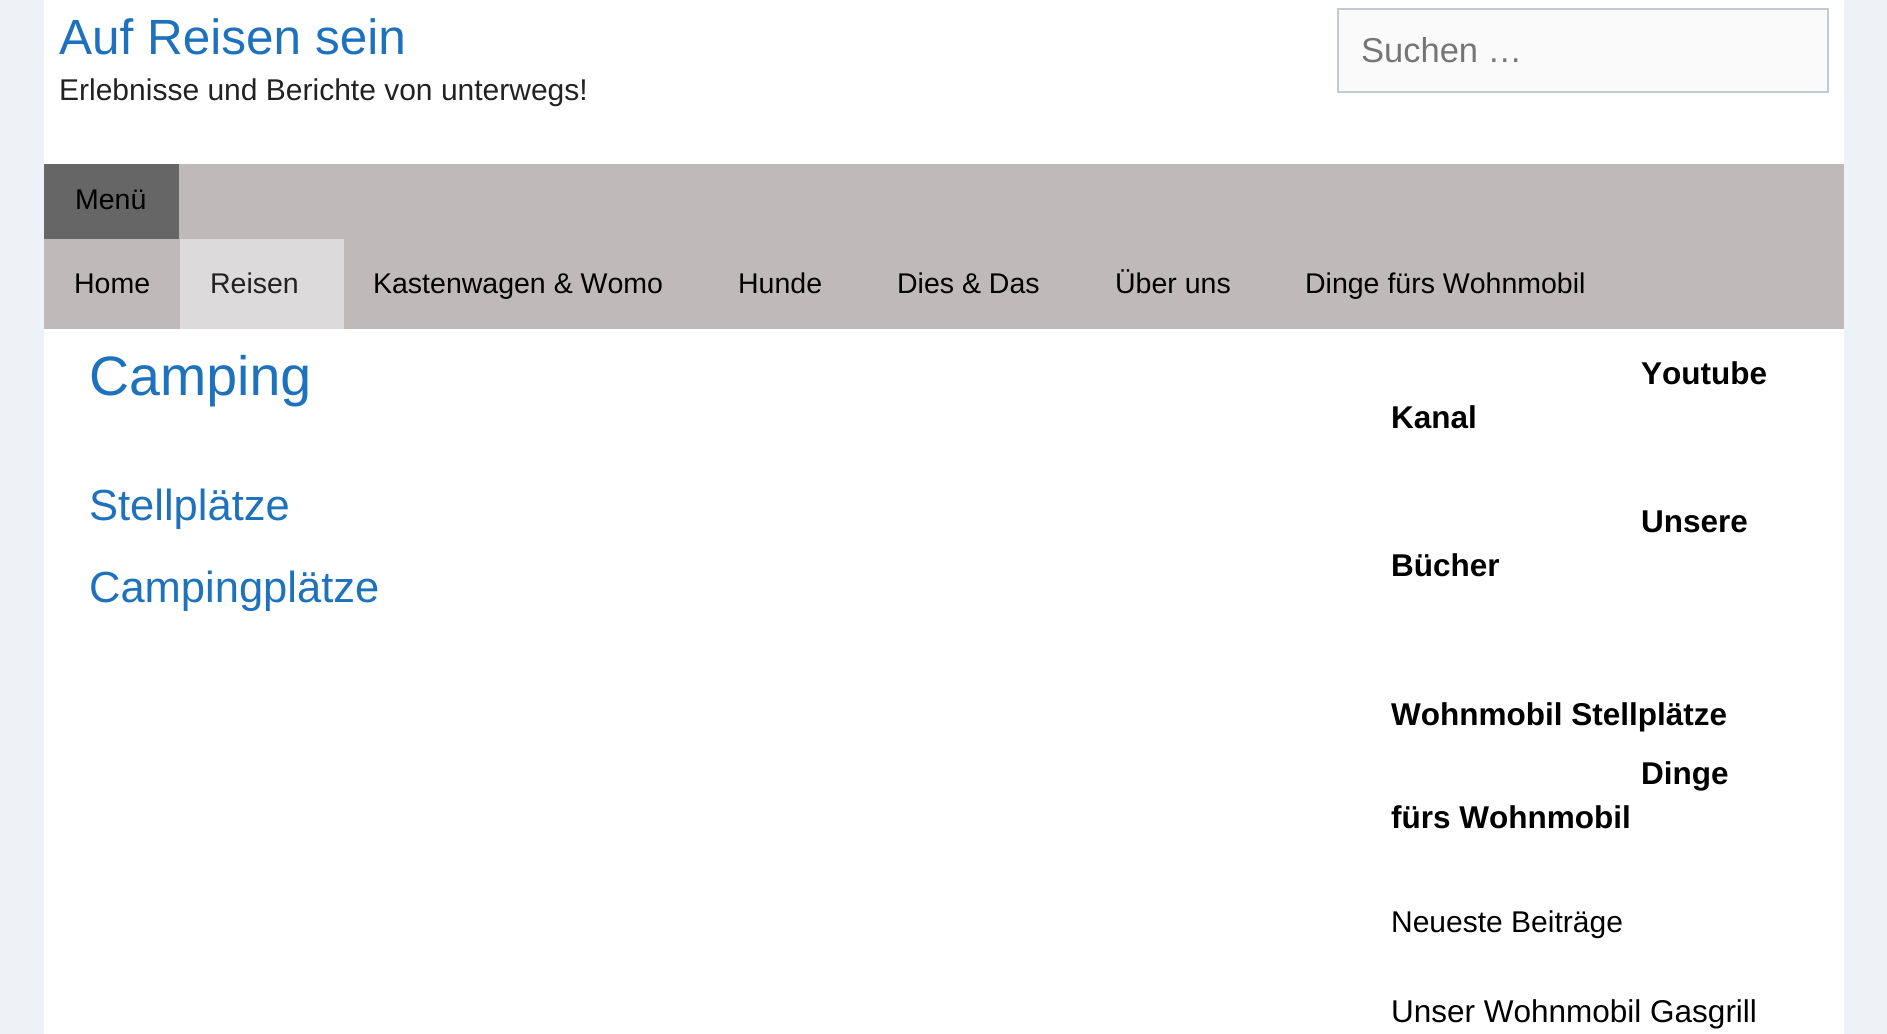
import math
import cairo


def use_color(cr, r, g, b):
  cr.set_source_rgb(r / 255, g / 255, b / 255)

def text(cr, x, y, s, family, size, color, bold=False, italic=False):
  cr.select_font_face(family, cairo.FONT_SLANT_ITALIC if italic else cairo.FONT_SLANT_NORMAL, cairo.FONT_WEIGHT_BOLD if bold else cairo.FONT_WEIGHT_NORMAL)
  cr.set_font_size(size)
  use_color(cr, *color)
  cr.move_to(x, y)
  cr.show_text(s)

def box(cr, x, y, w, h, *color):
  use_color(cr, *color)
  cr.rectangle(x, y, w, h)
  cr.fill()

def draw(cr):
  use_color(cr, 238, 241, 246)
  cr.paint()
  box(cr, 44, 0, 1800, 164, 255, 255, 255)
  use_color(cr, 250, 250, 250)
  cr.rectangle(1338, 9, 490, 83)
  cr.fill_preserve()
  use_color(cr, 196, 201, 216)
  cr.stroke()
  box(cr, 44, 164, 1800, 165, 192, 185, 185)
  box(cr, 44, 164, 135, 75, 102, 102, 102)
  box(cr, 180, 239, 164, 90, 220, 218, 218)
  box(cr, 44, 329, 1800, 705, 255, 255, 255)
  text(cr, 59, 54, "Auf Reisen sein", "Liberation Sans", 49.5, (30, 114, 189))
  text(cr, 59, 100, "Erlebnisse und Berichte von unterwegs!", "Liberation Sans", 30, (34, 34, 34))
  text(cr, 1361, 62, "Suchen …", "Liberation Sans", 34.5, (117, 117, 117))
  text(cr, 75, 209, "Menü", "Liberation Sans", 28.5, (0, 0, 0))
  text(cr, 74, 293, "Home", "Liberation Sans", 28.5, (0, 0, 0))
  text(cr, 210, 293, "Reisen", "Liberation Sans", 28.5, (34, 34, 34))
  text(cr, 373, 293, "Kastenwagen & Womo", "Liberation Sans", 28.5, (0, 0, 0))
  text(cr, 738, 293, "Hunde", "Liberation Sans", 28.5, (0, 0, 0))
  text(cr, 897, 293, "Dies & Das", "Liberation Sans", 28.5, (0, 0, 0))
  text(cr, 1115, 293, "Über uns", "Liberation Sans", 28.5, (0, 0, 0))
  text(cr, 1305, 293, "Dinge fürs Wohnmobil", "Liberation Sans", 28.5, (0, 0, 0))
  text(cr, 89, 395, "Camping", "Liberation Sans", 55.5, (30, 114, 189))
  text(cr, 89, 520, "Stellplätze", "Liberation Sans", 43.5, (30, 114, 189))
  text(cr, 89, 602, "Campingplätze", "Liberation Sans", 43.5, (30, 114, 189))
  text(cr, 1641, 384, "Youtube", "Liberation Sans", 31.5, (0, 0, 0), bold=True)
  text(cr, 1391, 428, "Kanal", "Liberation Sans", 31.5, (0, 0, 0), bold=True)
  text(cr, 1641, 532, "Unsere", "Liberation Sans", 31.5, (0, 0, 0), bold=True)
  text(cr, 1391, 576, "Bücher", "Liberation Sans", 31.5, (0, 0, 0), bold=True)
  text(cr, 1391, 725, "Wohnmobil Stellplätze", "Liberation Sans", 31.5, (0, 0, 0), bold=True)
  text(cr, 1641, 784, "Dinge", "Liberation Sans", 31.5, (0, 0, 0), bold=True)
  text(cr, 1391, 828, "fürs Wohnmobil", "Liberation Sans", 31.5, (0, 0, 0), bold=True)
  text(cr, 1391, 932, "Neueste Beiträge", "Liberation Sans", 30, (0, 0, 0))
  text(cr, 1391, 1022, "Unser Wohnmobil Gasgrill", "Liberation Sans", 31.5, (0, 0, 0))


surface = cairo.ImageSurface(cairo.FORMAT_RGB24, 1887, 1034)
cr = cairo.Context(surface)
options = cairo.FontOptions()
options.set_hint_metrics(cairo.HINT_METRICS_OFF)
options.set_hint_style(cairo.HINT_STYLE_NONE)
cr.set_font_options(options)
cr.set_miter_limit(4)
draw(cr)
surface.write_to_png("out.png")
